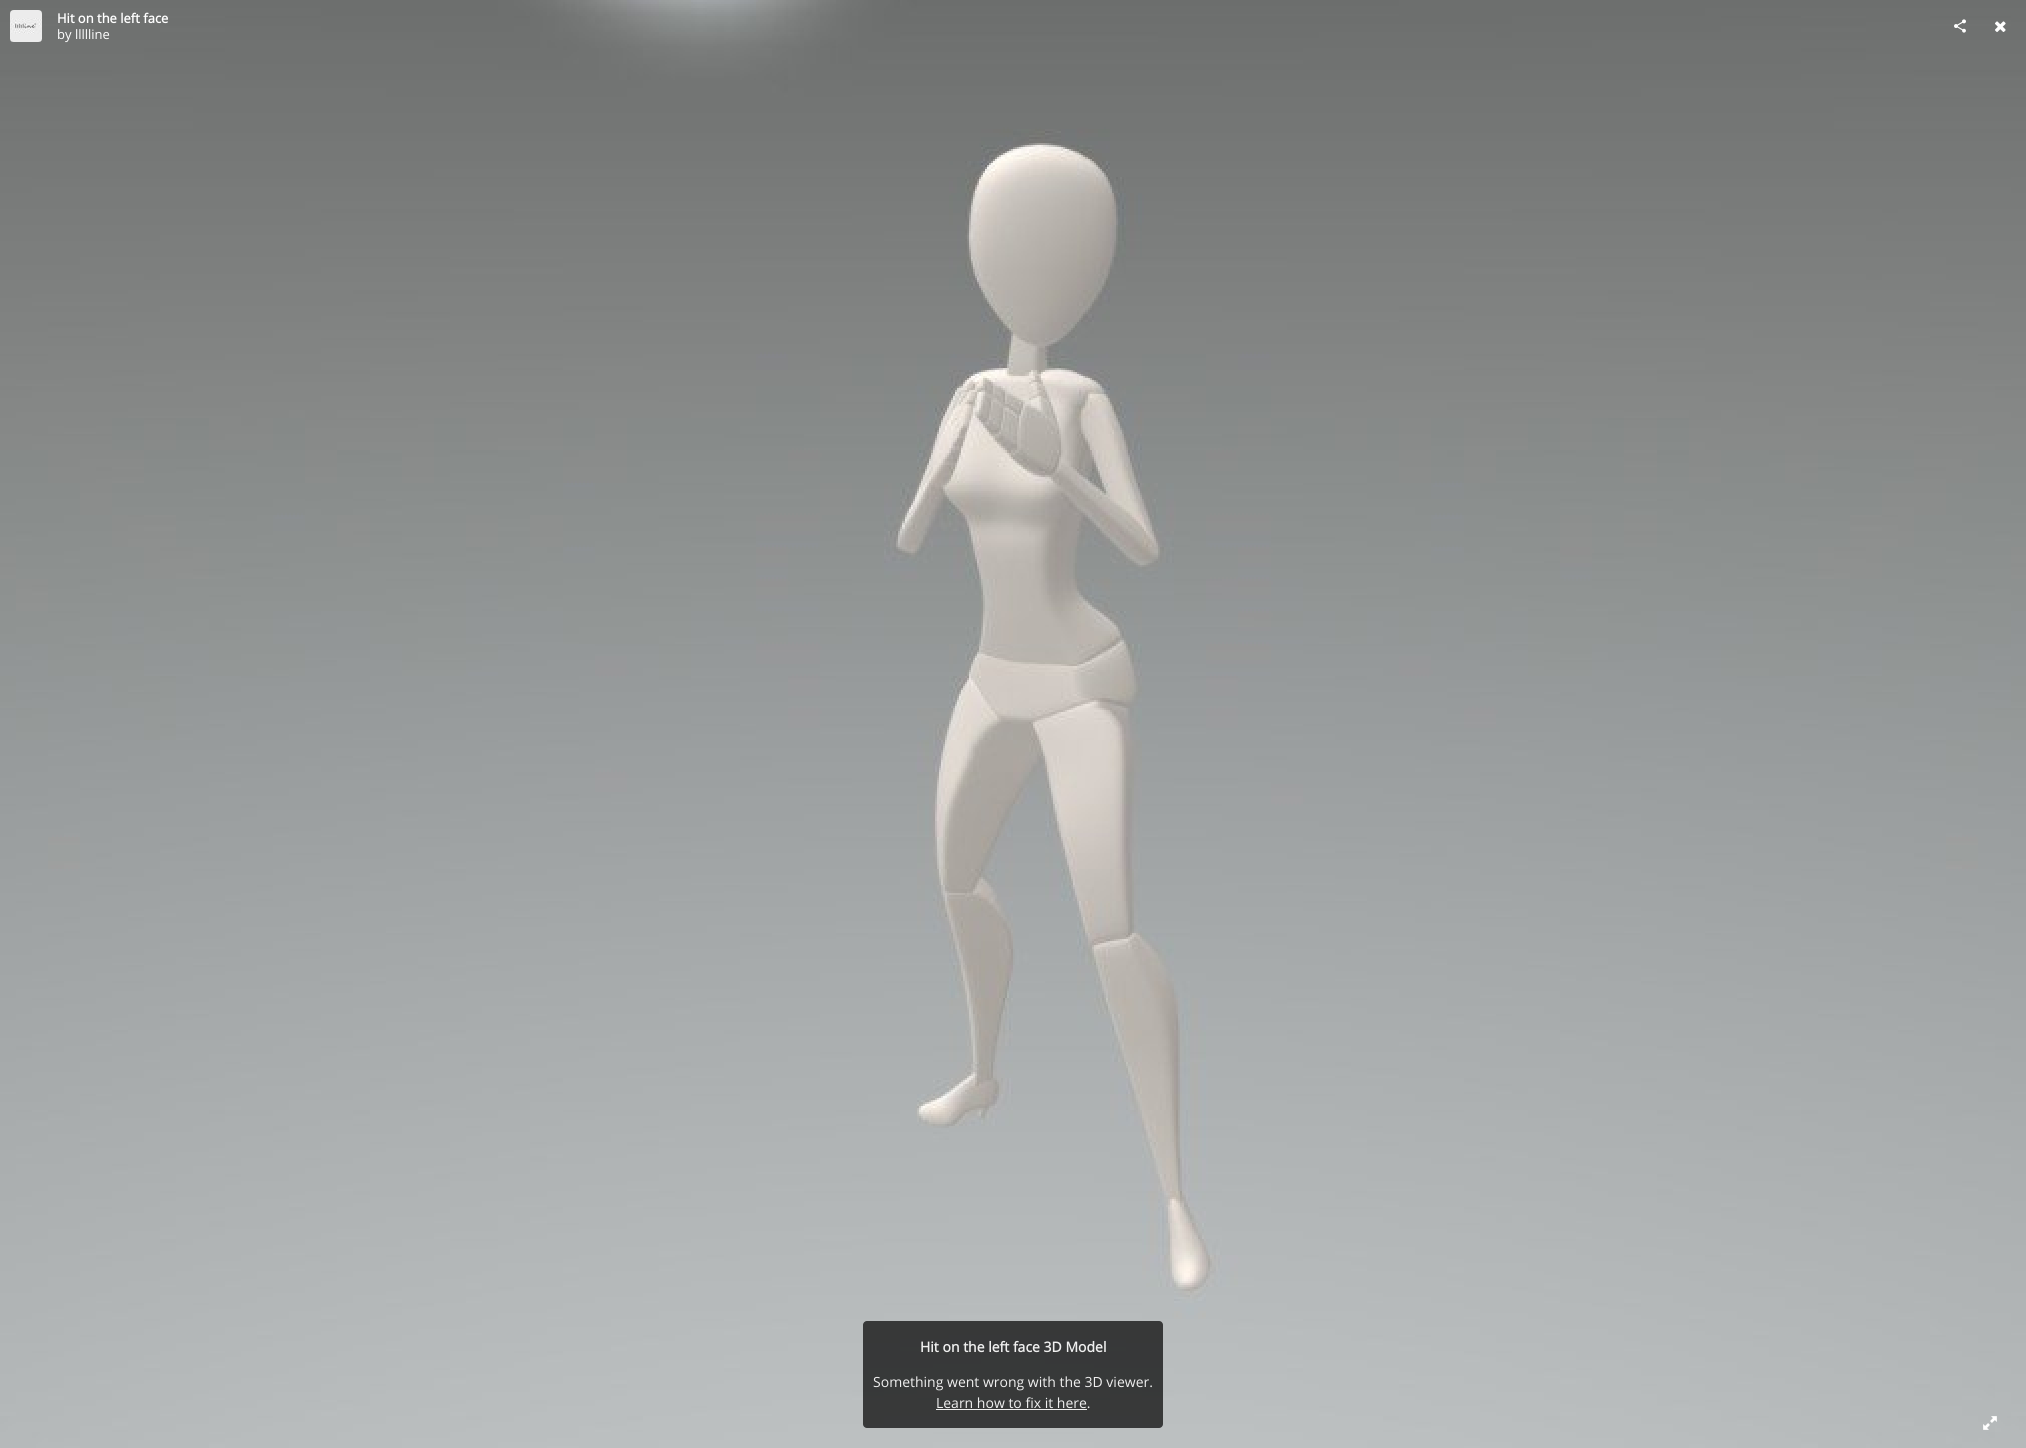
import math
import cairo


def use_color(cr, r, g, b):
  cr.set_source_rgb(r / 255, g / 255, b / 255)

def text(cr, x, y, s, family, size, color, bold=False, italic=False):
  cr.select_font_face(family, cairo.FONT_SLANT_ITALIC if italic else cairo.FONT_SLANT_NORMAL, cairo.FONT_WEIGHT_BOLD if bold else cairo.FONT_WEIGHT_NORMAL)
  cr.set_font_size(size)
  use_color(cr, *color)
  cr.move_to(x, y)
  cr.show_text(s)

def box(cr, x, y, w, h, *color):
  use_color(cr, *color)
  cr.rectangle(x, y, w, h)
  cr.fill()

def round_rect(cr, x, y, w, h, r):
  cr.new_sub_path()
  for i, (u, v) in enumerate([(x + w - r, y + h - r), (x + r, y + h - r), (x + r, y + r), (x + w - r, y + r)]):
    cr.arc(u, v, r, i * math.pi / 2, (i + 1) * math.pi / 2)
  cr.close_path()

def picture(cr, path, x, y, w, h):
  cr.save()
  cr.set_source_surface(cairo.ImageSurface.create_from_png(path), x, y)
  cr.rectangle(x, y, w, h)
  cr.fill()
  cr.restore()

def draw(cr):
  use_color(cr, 255, 255, 255)
  cr.paint()
  picture(cr, "img_04.png", 0, 0, 2026, 1448)
  picture(cr, "img_01.png", 10, 10, 32, 32)
  picture(cr, "img_02.png", 1954, 19, 12, 14)
  picture(cr, "img_03.png", 1995, 21, 11, 11)
  cr.set_source_rgba(0, 0, 0, 0.7)
  round_rect(cr, 863, 1321, 300, 107, 4)
  cr.fill()
  box(cr, 936, 1409, 151, 1, 239, 239, 239)
  picture(cr, "img_05.png", 1983, 1416, 14, 14)
  text(cr, 57, 23, "Hit on the left face", "Open Sans", 13, (255, 255, 255), bold=True)
  text(cr, 57, 39, "by llllline", "Open Sans", 13, (255, 255, 255))
  text(cr, 920, 1352, "Hit on the left face 3D Model", "Open Sans", 14, (239, 239, 239), bold=True)
  text(cr, 873, 1387, "Something went wrong with the 3D viewer.", "Open Sans", 14, (239, 239, 239))
  text(cr, 936, 1408, "Learn how to fix it here.", "Open Sans", 14, (239, 239, 239))


surface = cairo.ImageSurface(cairo.FORMAT_RGB24, 2026, 1448)
cr = cairo.Context(surface)
options = cairo.FontOptions()
options.set_hint_metrics(cairo.HINT_METRICS_OFF)
options.set_hint_style(cairo.HINT_STYLE_NONE)
cr.set_font_options(options)
cr.set_miter_limit(4)
draw(cr)
surface.write_to_png("out.png")
